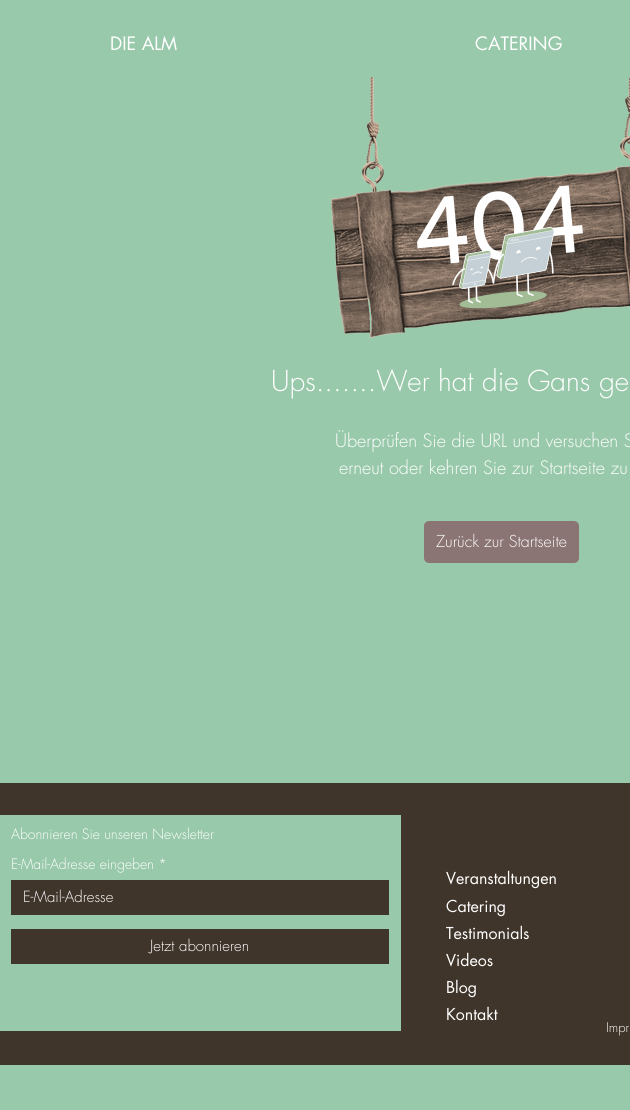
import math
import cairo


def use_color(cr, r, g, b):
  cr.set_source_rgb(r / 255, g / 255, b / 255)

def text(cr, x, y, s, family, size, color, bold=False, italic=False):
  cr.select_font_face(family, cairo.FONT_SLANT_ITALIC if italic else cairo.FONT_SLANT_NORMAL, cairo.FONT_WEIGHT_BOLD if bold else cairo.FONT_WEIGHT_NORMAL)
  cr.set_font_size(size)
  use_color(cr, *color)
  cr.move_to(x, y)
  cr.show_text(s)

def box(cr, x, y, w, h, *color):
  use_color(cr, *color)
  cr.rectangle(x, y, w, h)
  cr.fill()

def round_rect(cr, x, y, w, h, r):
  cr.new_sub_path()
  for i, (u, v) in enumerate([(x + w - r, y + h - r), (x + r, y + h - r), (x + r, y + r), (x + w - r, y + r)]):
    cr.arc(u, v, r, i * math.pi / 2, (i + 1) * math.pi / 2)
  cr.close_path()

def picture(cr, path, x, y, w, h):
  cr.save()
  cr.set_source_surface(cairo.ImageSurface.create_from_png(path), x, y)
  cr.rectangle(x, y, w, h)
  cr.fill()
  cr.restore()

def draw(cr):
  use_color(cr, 153, 201, 171)
  cr.paint()
  picture(cr, "img_01.png", 330, 77, 300, 261)
  picture(cr, "img_02.png", 417, 185, 166, 124)
  use_color(cr, 139, 116, 116)
  round_rect(cr, 424, 521, 155, 42, 5)
  cr.fill()
  box(cr, 0, 783, 630, 282, 64, 53, 43)
  box(cr, 0, 815, 401, 216, 153, 201, 171)
  box(cr, 11, 880, 378, 35, 64, 53, 43)
  box(cr, 11, 929, 378, 35, 64, 53, 43)
  text(cr, 110, 50, "DIE ALM", "futura", 18, (255, 255, 255))
  text(cr, 475, 50, "CATERING", "futura", 18, (255, 255, 255))
  text(cr, 271, 391, "Ups.......Wer hat die Gans ge", "futura Light", 28, (255, 255, 255))
  text(cr, 335, 447, "Überprüfen Sie die URL und versuchen S", "futura Light", 18, (255, 255, 255))
  text(cr, 339, 474, "erneut oder kehren Sie zur Startseite zu", "futura Light", 18, (255, 255, 255))
  text(cr, 436, 547, "Zurück zur Startseite", "futura Light", 16, (255, 255, 255))
  text(cr, 11, 839, "Abonnieren Sie unseren Newsletter", "futura Light", 14, (255, 255, 255))
  text(cr, 11, 869, "E-Mail-Adresse eingeben *", "futura Light", 14, (255, 255, 255))
  text(cr, 23, 902, "E-Mail-Adresse", "futura Light", 15, (255, 255, 255))
  text(cr, 150, 951, "Jetzt abonnieren", "futura Light", 15, (255, 255, 255))
  text(cr, 446, 884, "Veranstaltungen", "futura", 16, (255, 255, 255))
  text(cr, 446, 912, "Catering", "futura", 16, (255, 255, 255))
  text(cr, 446, 939, "Testimonials", "futura", 16, (255, 255, 255))
  text(cr, 446, 966, "Videos", "futura", 16, (255, 255, 255))
  text(cr, 446, 993, "Blog", "futura", 16, (255, 255, 255))
  text(cr, 446, 1020, "Kontakt", "futura", 16, (255, 255, 255))
  text(cr, 606, 1032, "Impr", "futura Light", 13, (255, 255, 255))


surface = cairo.ImageSurface(cairo.FORMAT_RGB24, 630, 1110)
cr = cairo.Context(surface)
options = cairo.FontOptions()
options.set_hint_metrics(cairo.HINT_METRICS_OFF)
options.set_hint_style(cairo.HINT_STYLE_NONE)
cr.set_font_options(options)
cr.set_miter_limit(4)
draw(cr)
surface.write_to_png("out.png")
